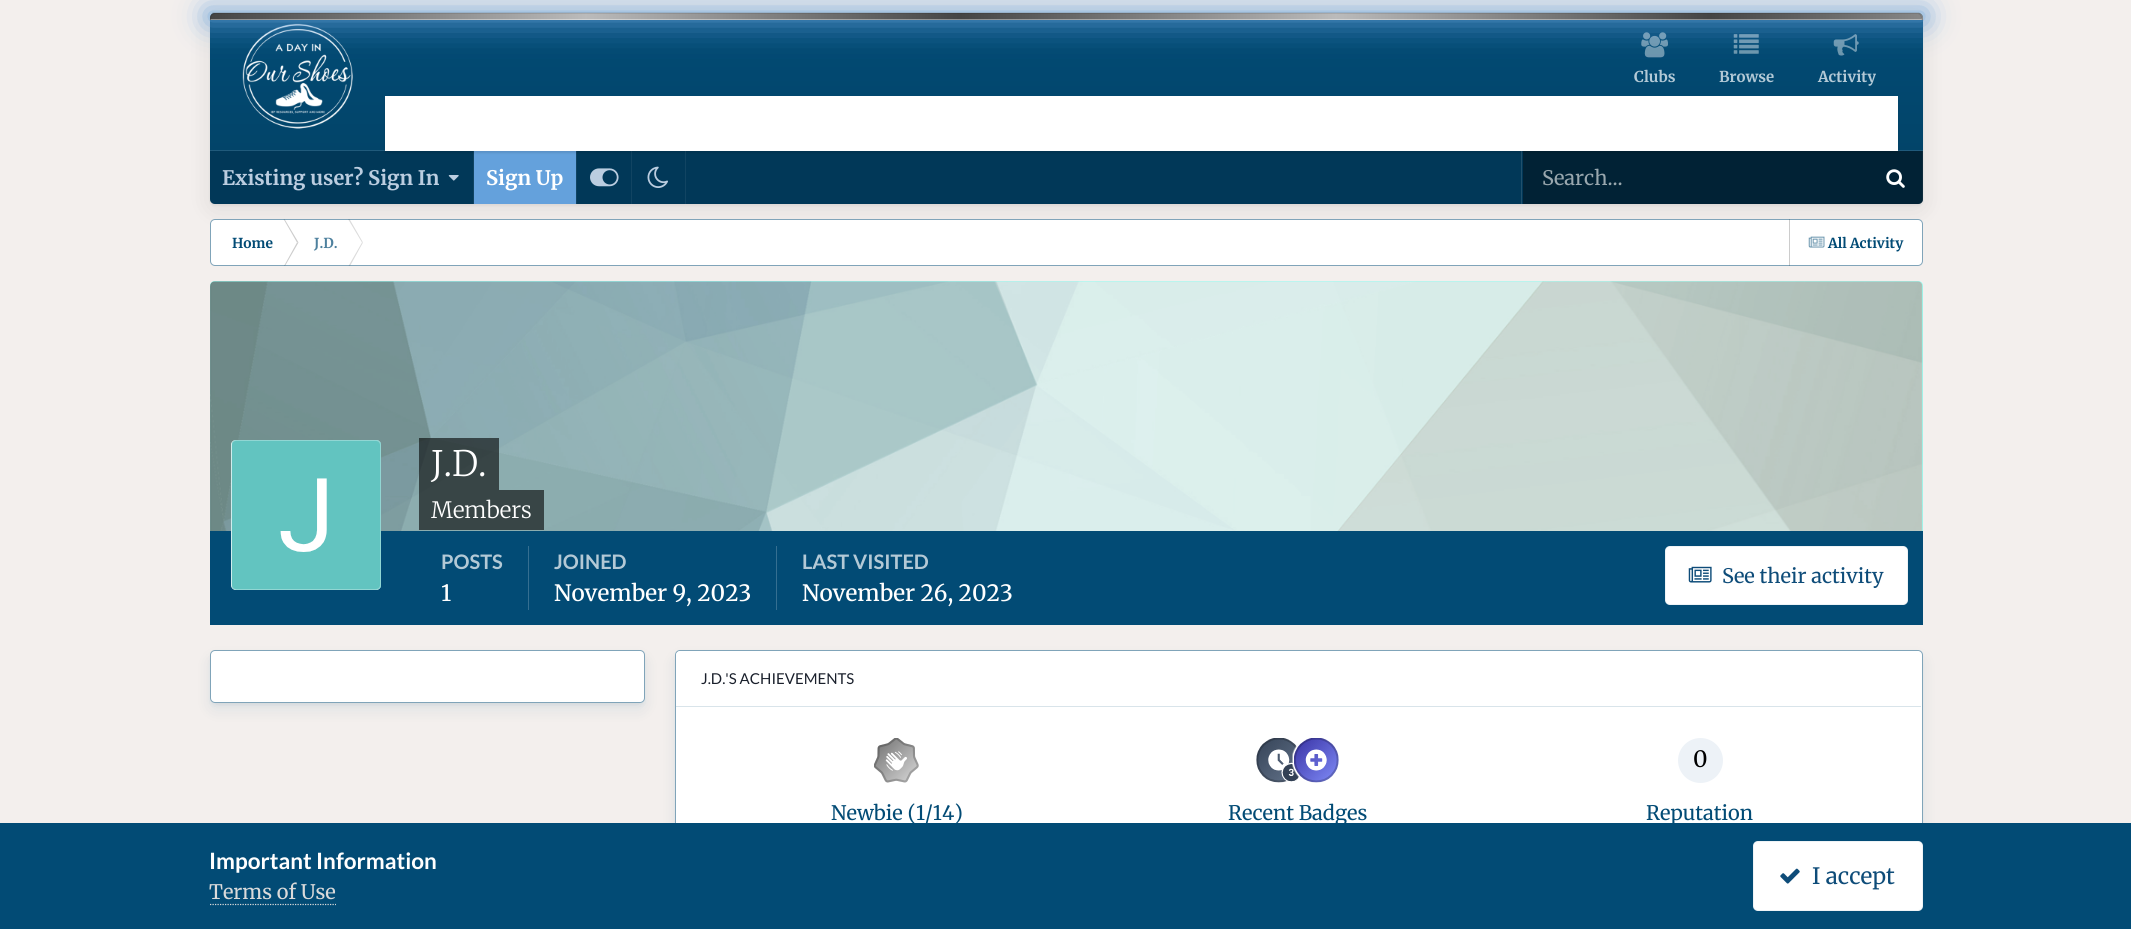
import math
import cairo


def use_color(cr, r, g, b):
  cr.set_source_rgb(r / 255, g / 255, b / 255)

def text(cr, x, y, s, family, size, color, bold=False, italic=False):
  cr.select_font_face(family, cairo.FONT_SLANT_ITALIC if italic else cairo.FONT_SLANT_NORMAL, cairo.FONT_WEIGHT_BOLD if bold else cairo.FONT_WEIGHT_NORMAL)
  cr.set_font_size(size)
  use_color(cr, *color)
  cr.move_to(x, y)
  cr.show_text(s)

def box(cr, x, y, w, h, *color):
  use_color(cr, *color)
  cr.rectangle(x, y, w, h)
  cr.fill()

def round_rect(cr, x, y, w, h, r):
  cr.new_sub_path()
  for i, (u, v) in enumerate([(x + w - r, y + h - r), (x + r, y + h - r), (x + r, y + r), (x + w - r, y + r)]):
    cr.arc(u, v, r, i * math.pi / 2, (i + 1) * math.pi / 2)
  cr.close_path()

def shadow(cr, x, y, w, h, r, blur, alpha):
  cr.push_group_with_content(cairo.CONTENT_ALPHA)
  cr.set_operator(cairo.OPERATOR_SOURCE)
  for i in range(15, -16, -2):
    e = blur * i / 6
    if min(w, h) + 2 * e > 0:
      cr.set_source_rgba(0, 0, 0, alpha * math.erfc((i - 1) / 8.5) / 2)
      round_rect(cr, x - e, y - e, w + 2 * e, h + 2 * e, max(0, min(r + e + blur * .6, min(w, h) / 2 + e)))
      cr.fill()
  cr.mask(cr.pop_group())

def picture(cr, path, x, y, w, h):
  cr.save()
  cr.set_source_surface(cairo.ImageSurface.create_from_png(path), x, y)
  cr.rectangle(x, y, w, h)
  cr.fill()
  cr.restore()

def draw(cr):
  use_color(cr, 243, 239, 237)
  cr.paint()
  use_color(cr, 0, 0, 0)
  shadow(cr, 210, 18, 1713, 191, 5, 12.5, 0.08)
  shadow(cr, 210, 15, 1713, 191, 5, 1, 0.05)
  use_color(cr, 2, 75, 117)
  round_rect(cr, 210, 13, 1713, 191, 5)
  cr.fill()
  gradient = cairo.LinearGradient(1066, 20, 1066, 151)
  gradient.add_color_stop_rgba(0, 0.008, 0.294, 0.459, 1)
  gradient.add_color_stop_rgba(1, 0.008, 0.267, 0.412, 1)
  cr.set_source(gradient)
  cr.rectangle(210, 47, 1713, 104)
  cr.fill()
  picture(cr, "img_01.png", 242, 23, 111, 106)
  use_color(cr, 100, 161, 220)
  shadow(cr, 210, 13, 1713, 7, 5, 15.5, 1)
  cr.save()
  cr.new_path()
  cr.move_to(215, 13)
  cr.line_to(1918, 13)
  cr.curve_to(1921, 13, 1923, 15, 1923, 18)
  cr.line_to(1923, 20)
  cr.line_to(210, 20)
  cr.line_to(210, 18)
  cr.curve_to(210, 15, 212, 13, 215, 13)
  cr.close_path()
  cr.clip()
  gradient = cairo.LinearGradient(-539, 16, 211, 16)
  gradient.add_color_stop_rgba(0, 0.267, 0.267, 0.267, 1)
  gradient.add_color_stop_rgba(0.5, 0.733, 0.733, 0.733, 1)
  gradient.add_color_stop_rgba(1, 0.267, 0.267, 0.267, 1)
  cr.set_source(gradient)
  cr.rectangle(210, 13, 1, 7)
  cr.fill()
  gradient = cairo.LinearGradient(211, 16, 961, 16)
  gradient.add_color_stop_rgba(0, 0.267, 0.267, 0.267, 1)
  gradient.add_color_stop_rgba(0.5, 0.733, 0.733, 0.733, 1)
  gradient.add_color_stop_rgba(1, 0.267, 0.267, 0.267, 1)
  cr.set_source(gradient)
  cr.rectangle(211, 13, 750, 7)
  cr.fill()
  cr.restore()
  gradient = cairo.LinearGradient(961, 16, 1711, 16)
  gradient.add_color_stop_rgba(0, 0.267, 0.267, 0.267, 1)
  gradient.add_color_stop_rgba(0.5, 0.733, 0.733, 0.733, 1)
  gradient.add_color_stop_rgba(1, 0.267, 0.267, 0.267, 1)
  cr.set_source(gradient)
  cr.rectangle(961, 13, 750, 7)
  cr.fill()
  cr.save()
  cr.new_path()
  cr.move_to(215, 13)
  cr.line_to(1918, 13)
  cr.curve_to(1921, 13, 1923, 15, 1923, 18)
  cr.line_to(1923, 20)
  cr.line_to(210, 20)
  cr.line_to(210, 18)
  cr.curve_to(210, 15, 212, 13, 215, 13)
  cr.close_path()
  cr.clip()
  gradient = cairo.LinearGradient(1711, 16, 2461, 16)
  gradient.add_color_stop_rgba(0, 0.267, 0.267, 0.267, 1)
  gradient.add_color_stop_rgba(0.5, 0.733, 0.733, 0.733, 1)
  gradient.add_color_stop_rgba(1, 0.267, 0.267, 0.267, 1)
  cr.set_source(gradient)
  cr.rectangle(1711, 13, 212, 7)
  cr.fill()
  cr.restore()
  cr.set_source_rgba(0, 0, 0, 0.1)
  cr.new_path()
  cr.move_to(215, 14)
  cr.line_to(212, 15)
  cr.line_to(211, 14)
  cr.line_to(213, 12)
  cr.line_to(1919, 12)
  cr.line_to(1921, 14)
  cr.line_to(1920, 15)
  cr.line_to(1918, 14)
  cr.close_path()
  cr.fill()
  cr.new_path()
  cr.move_to(1921, 14)
  cr.curve_to(1922, 15.5, 1922, 17.5, 1922, 19.5)
  cr.line_to(1921, 18.5)
  cr.curve_to(1921, 17, 1920.5, 16, 1920, 15)
  cr.close_path()
  cr.fill()
  cr.set_source_rgba(1, 1, 1, 0.4)
  cr.new_path()
  cr.move_to(1922, 20)
  cr.line_to(1921, 18)
  cr.line_to(1921, 19)
  cr.line_to(211, 19)
  cr.line_to(210, 20)
  cr.close_path()
  cr.fill()
  cr.set_source_rgba(0, 0, 0, 0.1)
  cr.new_path()
  cr.move_to(210, 20)
  cr.line_to(211, 19)
  cr.curve_to(211, 17, 211.5, 15.5, 212.5, 15)
  cr.line_to(211.5, 14)
  cr.curve_to(210.5, 15.5, 210, 18, 210, 20)
  cr.close_path()
  cr.fill()
  picture(cr, "img_02.png", 1641, 32, 27, 26)
  picture(cr, "img_03.png", 1733, 34, 26, 20)
  picture(cr, "img_04.png", 1833, 34, 26, 22)
  cr.set_source_rgba(1, 1, 1, 0.12)
  cr.new_path()
  cr.move_to(210, 150)
  cr.line_to(210, 151)
  cr.line_to(1922, 151)
  cr.line_to(1922, 199)
  cr.line_to(1922, 201)
  cr.curve_to(1923, 200, 1923, 199, 1923, 198)
  cr.line_to(1923, 150)
  cr.close_path()
  cr.fill()
  cr.set_source_rgba(0, 0, 0, 0.25)
  cr.new_path()
  cr.move_to(210, 151)
  cr.line_to(1923, 151)
  cr.line_to(1923, 199)
  cr.curve_to(1923, 202, 1921, 204, 1918, 204)
  cr.line_to(215, 204)
  cr.curve_to(212, 204, 210, 202, 210, 199)
  cr.close_path()
  cr.fill()
  box(cr, 473, 151, 1, 53, 17, 68, 98)
  box(cr, 576, 151, 1, 53, 17, 68, 98)
  box(cr, 474, 151, 102, 53, 100, 161, 220)
  box(cr, 631, 151, 1, 53, 17, 68, 98)
  box(cr, 685, 151, 1, 53, 17, 68, 98)
  use_color(cr, 32, 80, 108)
  cr.new_path()
  cr.move_to(1521, 151)
  cr.line_to(1521, 204)
  cr.line_to(1918, 204)
  cr.line_to(1522, 204)
  cr.line_to(1522, 151)
  cr.line_to(1921, 151)
  cr.close_path()
  cr.fill()
  cr.set_source_rgba(0, 0, 0, 0.4)
  cr.new_path()
  cr.move_to(1523, 151)
  cr.line_to(1923, 151)
  cr.line_to(1923, 199)
  cr.curve_to(1923, 202, 1921, 204, 1918, 204)
  cr.line_to(1523, 204)
  cr.close_path()
  cr.fill()
  use_color(cr, 0, 0, 0)
  shadow(cr, 385, 98, 1513, 55, 0, 1, 0.1)
  box(cr, 385, 96, 1513, 55, 255, 255, 255)
  picture(cr, "img_05.png", 448, 175, 11, 6)
  picture(cr, "img_06.png", 590, 168, 29, 19)
  picture(cr, "img_07.png", 647, 166, 21, 22)
  picture(cr, "img_08.png", 1886, 169, 19, 19)
  round_rect(cr, 210, 219, 1713, 47, 5)
  cr.fill()
  use_color(cr, 204, 204, 204)
  cr.new_path()
  cr.move_to(283.5, 219)
  cr.line_to(284.5, 219)
  cr.line_to(298.5, 242.5)
  cr.line_to(297, 242.5)
  cr.close_path()
  cr.fill()
  cr.new_path()
  cr.move_to(285, 266)
  cr.line_to(298.5, 242.5)
  cr.line_to(297, 242.5)
  cr.line_to(284, 266)
  cr.close_path()
  cr.fill()
  use_color(cr, 219, 219, 219)
  cr.new_path()
  cr.move_to(348, 219)
  cr.line_to(349.5, 219)
  cr.line_to(363, 242.5)
  cr.line_to(362, 242.5)
  cr.close_path()
  cr.fill()
  cr.new_path()
  cr.move_to(350, 266)
  cr.line_to(363, 242.5)
  cr.line_to(362, 242.5)
  cr.line_to(348.5, 266)
  cr.close_path()
  cr.fill()
  box(cr, 1789, 219, 1, 47, 204, 204, 204)
  picture(cr, "img_09.png", 1808, 236, 17, 12)
  round_rect(cr, 210.5, 219.5, 1712, 46, 4.5)
  cr.set_source_rgba(0.008, 0.294, 0.459, 0.5)
  cr.set_line_width(1)
  cr.stroke()
  use_color(cr, 153, 255, 245)
  cr.new_path()
  cr.move_to(215, 281)
  cr.line_to(1918, 281)
  cr.curve_to(1921, 281, 1923, 283, 1923, 286)
  cr.line_to(1923, 531)
  cr.line_to(210, 531)
  cr.line_to(210, 286)
  cr.curve_to(210, 283, 212, 281, 215, 281)
  cr.close_path()
  cr.fill()
  picture(cr, "img_10.png", 210, 281, 1713, 250)
  box(cr, 210, 531, 1713, 94, 2, 75, 117)
  use_color(cr, 255, 255, 255)
  round_rect(cr, 231, 440, 150, 150, 5)
  cr.fill()
  picture(cr, "img_11.png", 231, 440, 150, 150)
  round_rect(cr, 231.5, 440.5, 149, 149, 4.5)
  cr.set_source_rgba(1, 1, 1, 0.3)
  cr.stroke()
  cr.set_source_rgba(0, 0, 0, 0.6)
  cr.rectangle(419, 438, 80, 52)
  cr.fill()
  cr.rectangle(419, 490, 125, 40)
  cr.fill()
  box(cr, 528, 546, 1, 64, 53, 111, 145)
  box(cr, 776, 546, 1, 64, 53, 111, 145)
  use_color(cr, 255, 255, 255)
  round_rect(cr, 1665, 546, 243, 59, 5)
  cr.fill()
  round_rect(cr, 1665.5, 546.5, 242, 58, 4.5)
  cr.set_source_rgba(0.055, 0.298, 0.475, 0.07)
  cr.stroke()
  picture(cr, "img_12.png", 1688, 566, 24, 17)
  use_color(cr, 2, 75, 117)
  shadow(cr, 210, 658, 435, 52, 5, 8, 0.08)
  shadow(cr, 211, 655, 433, 50, 4, 2.5, 0.08)
  use_color(cr, 255, 255, 255)
  round_rect(cr, 210, 650, 435, 53, 5)
  cr.fill()
  round_rect(cr, 210.5, 650.5, 434, 52, 4.5)
  cr.set_source_rgba(0.008, 0.294, 0.459, 0.5)
  cr.stroke()
  use_color(cr, 2, 75, 117)
  shadow(cr, 675, 658, 1248, 210, 5, 8, 0.08)
  shadow(cr, 676, 655, 1245, 208, 4, 2.5, 0.08)
  use_color(cr, 255, 255, 255)
  round_rect(cr, 675, 650, 1248, 210, 5)
  cr.fill()
  round_rect(cr, 675.5, 650.5, 1247, 209, 4.5)
  cr.set_source_rgba(0.008, 0.294, 0.459, 0.5)
  cr.stroke()
  use_color(cr, 255, 255, 255)
  cr.new_path()
  cr.move_to(681, 651)
  cr.line_to(1916, 651)
  cr.curve_to(1919, 651, 1921, 653, 1921, 656)
  cr.line_to(1921, 708)
  cr.line_to(676, 708)
  cr.line_to(676, 656)
  cr.curve_to(676, 653, 678, 651, 681, 651)
  cr.close_path()
  cr.fill()
  box(cr, 676, 706, 1245, 1, 217, 228, 234)
  picture(cr, "img_13.png", 874, 738, 45, 45)
  picture(cr, "img_14.png", 1256, 738, 45, 45)
  picture(cr, "img_15.png", 1292, 738, 47, 45)
  use_color(cr, 237, 242, 247)
  cr.arc(1700.5, 760.5, 22.5, 0, 2 * math.pi)
  cr.fill()
  box(cr, 0, 823, 2131, 106, 2, 75, 117)
  cr.new_path()
  cr.move_to(210, 904.5)
  cr.line_to(336, 904.5)
  use_color(cr, 218, 218, 218)
  cr.set_line_width(1.2)
  cr.set_dash([1.25, 1.25])
  cr.stroke()
  use_color(cr, 255, 255, 255)
  round_rect(cr, 1753, 841, 170, 70, 5)
  cr.fill()
  round_rect(cr, 1753.5, 841.5, 169, 69, 4.5)
  cr.set_source_rgba(0.055, 0.298, 0.475, 0.07)
  cr.set_line_width(1)
  cr.set_dash([])
  cr.stroke()
  picture(cr, "img_16.png", 1780, 868, 20, 16)
  text(cr, 1634, 82, "Clubs", "Merriweather", 15, (179, 201, 214), bold=True)
  text(cr, 1719, 82, "Browse", "Merriweather", 15, (179, 201, 214), bold=True)
  text(cr, 1818, 82, "Activity", "Merriweather", 15, (179, 201, 214), bold=True)
  text(cr, 222, 185, "Existing user? Sign In", "Merriweather", 20, (187, 205, 224), bold=True)
  text(cr, 486, 185, "Sign Up", "Merriweather", 20, (255, 255, 255), bold=True)
  text(cr, 1542, 185, "Search...", "Merriweather", 20, (153, 167, 174))
  text(cr, 232, 248, "Home", "Merriweather", 13.75, (2, 75, 117), bold=True)
  text(cr, 314, 248, "J.D.", "Merriweather", 13.75, (78, 129, 158), bold=True)
  text(cr, 1828, 248, "All Activity", "Merriweather", 13.75, (2, 75, 117), bold=True)
  text(cr, 431, 476, "J.D.", "Merriweather Light", 35, (255, 255, 255))
  text(cr, 431, 518, "Members", "Merriweather Light", 22.5, (255, 255, 255))
  text(cr, 441, 569, "POSTS", "Lato", 20, (179, 201, 214), bold=True)
  text(cr, 441, 601, "1", "Merriweather Medium", 22.5, (255, 255, 255))
  text(cr, 554, 569, "JOINED", "Lato", 20, (179, 201, 214), bold=True)
  text(cr, 554, 601, "November 9, 2023", "Merriweather Medium", 22.5, (255, 255, 255))
  text(cr, 802, 569, "LAST VISITED", "Lato", 20, (179, 201, 214), bold=True)
  text(cr, 802, 601, "November 26, 2023", "Merriweather Medium", 22.5, (255, 255, 255))
  text(cr, 1722, 583, "See their activity", "Merriweather", 20, (14, 76, 121))
  text(cr, 701, 684, "J.D.'S ACHIEVEMENTS", "Lato", 15, (26, 32, 44))
  text(cr, 831, 820, "Newbie (1/14)", "Merriweather", 20, (2, 75, 117))
  text(cr, 1228, 820, "Recent Badges", "Merriweather", 20, (2, 75, 117))
  text(cr, 1693, 767, "0", "Merriweather", 22.5, (0, 0, 0))
  text(cr, 1646, 820, "Reputation", "Merriweather", 20, (2, 75, 117))
  text(cr, 209, 869, "Important Information", "Lato", 22.5, (255, 255, 255), bold=True)
  text(cr, 209, 899, "Terms of Use", "Merriweather", 20, (218, 218, 218))
  text(cr, 1812, 884, "I accept", "Merriweather", 22.5, (14, 76, 121))


surface = cairo.ImageSurface(cairo.FORMAT_RGB24, 2131, 929)
cr = cairo.Context(surface)
options = cairo.FontOptions()
options.set_hint_metrics(cairo.HINT_METRICS_OFF)
options.set_hint_style(cairo.HINT_STYLE_NONE)
cr.set_font_options(options)
cr.set_miter_limit(4)
draw(cr)
surface.write_to_png("out.png")
